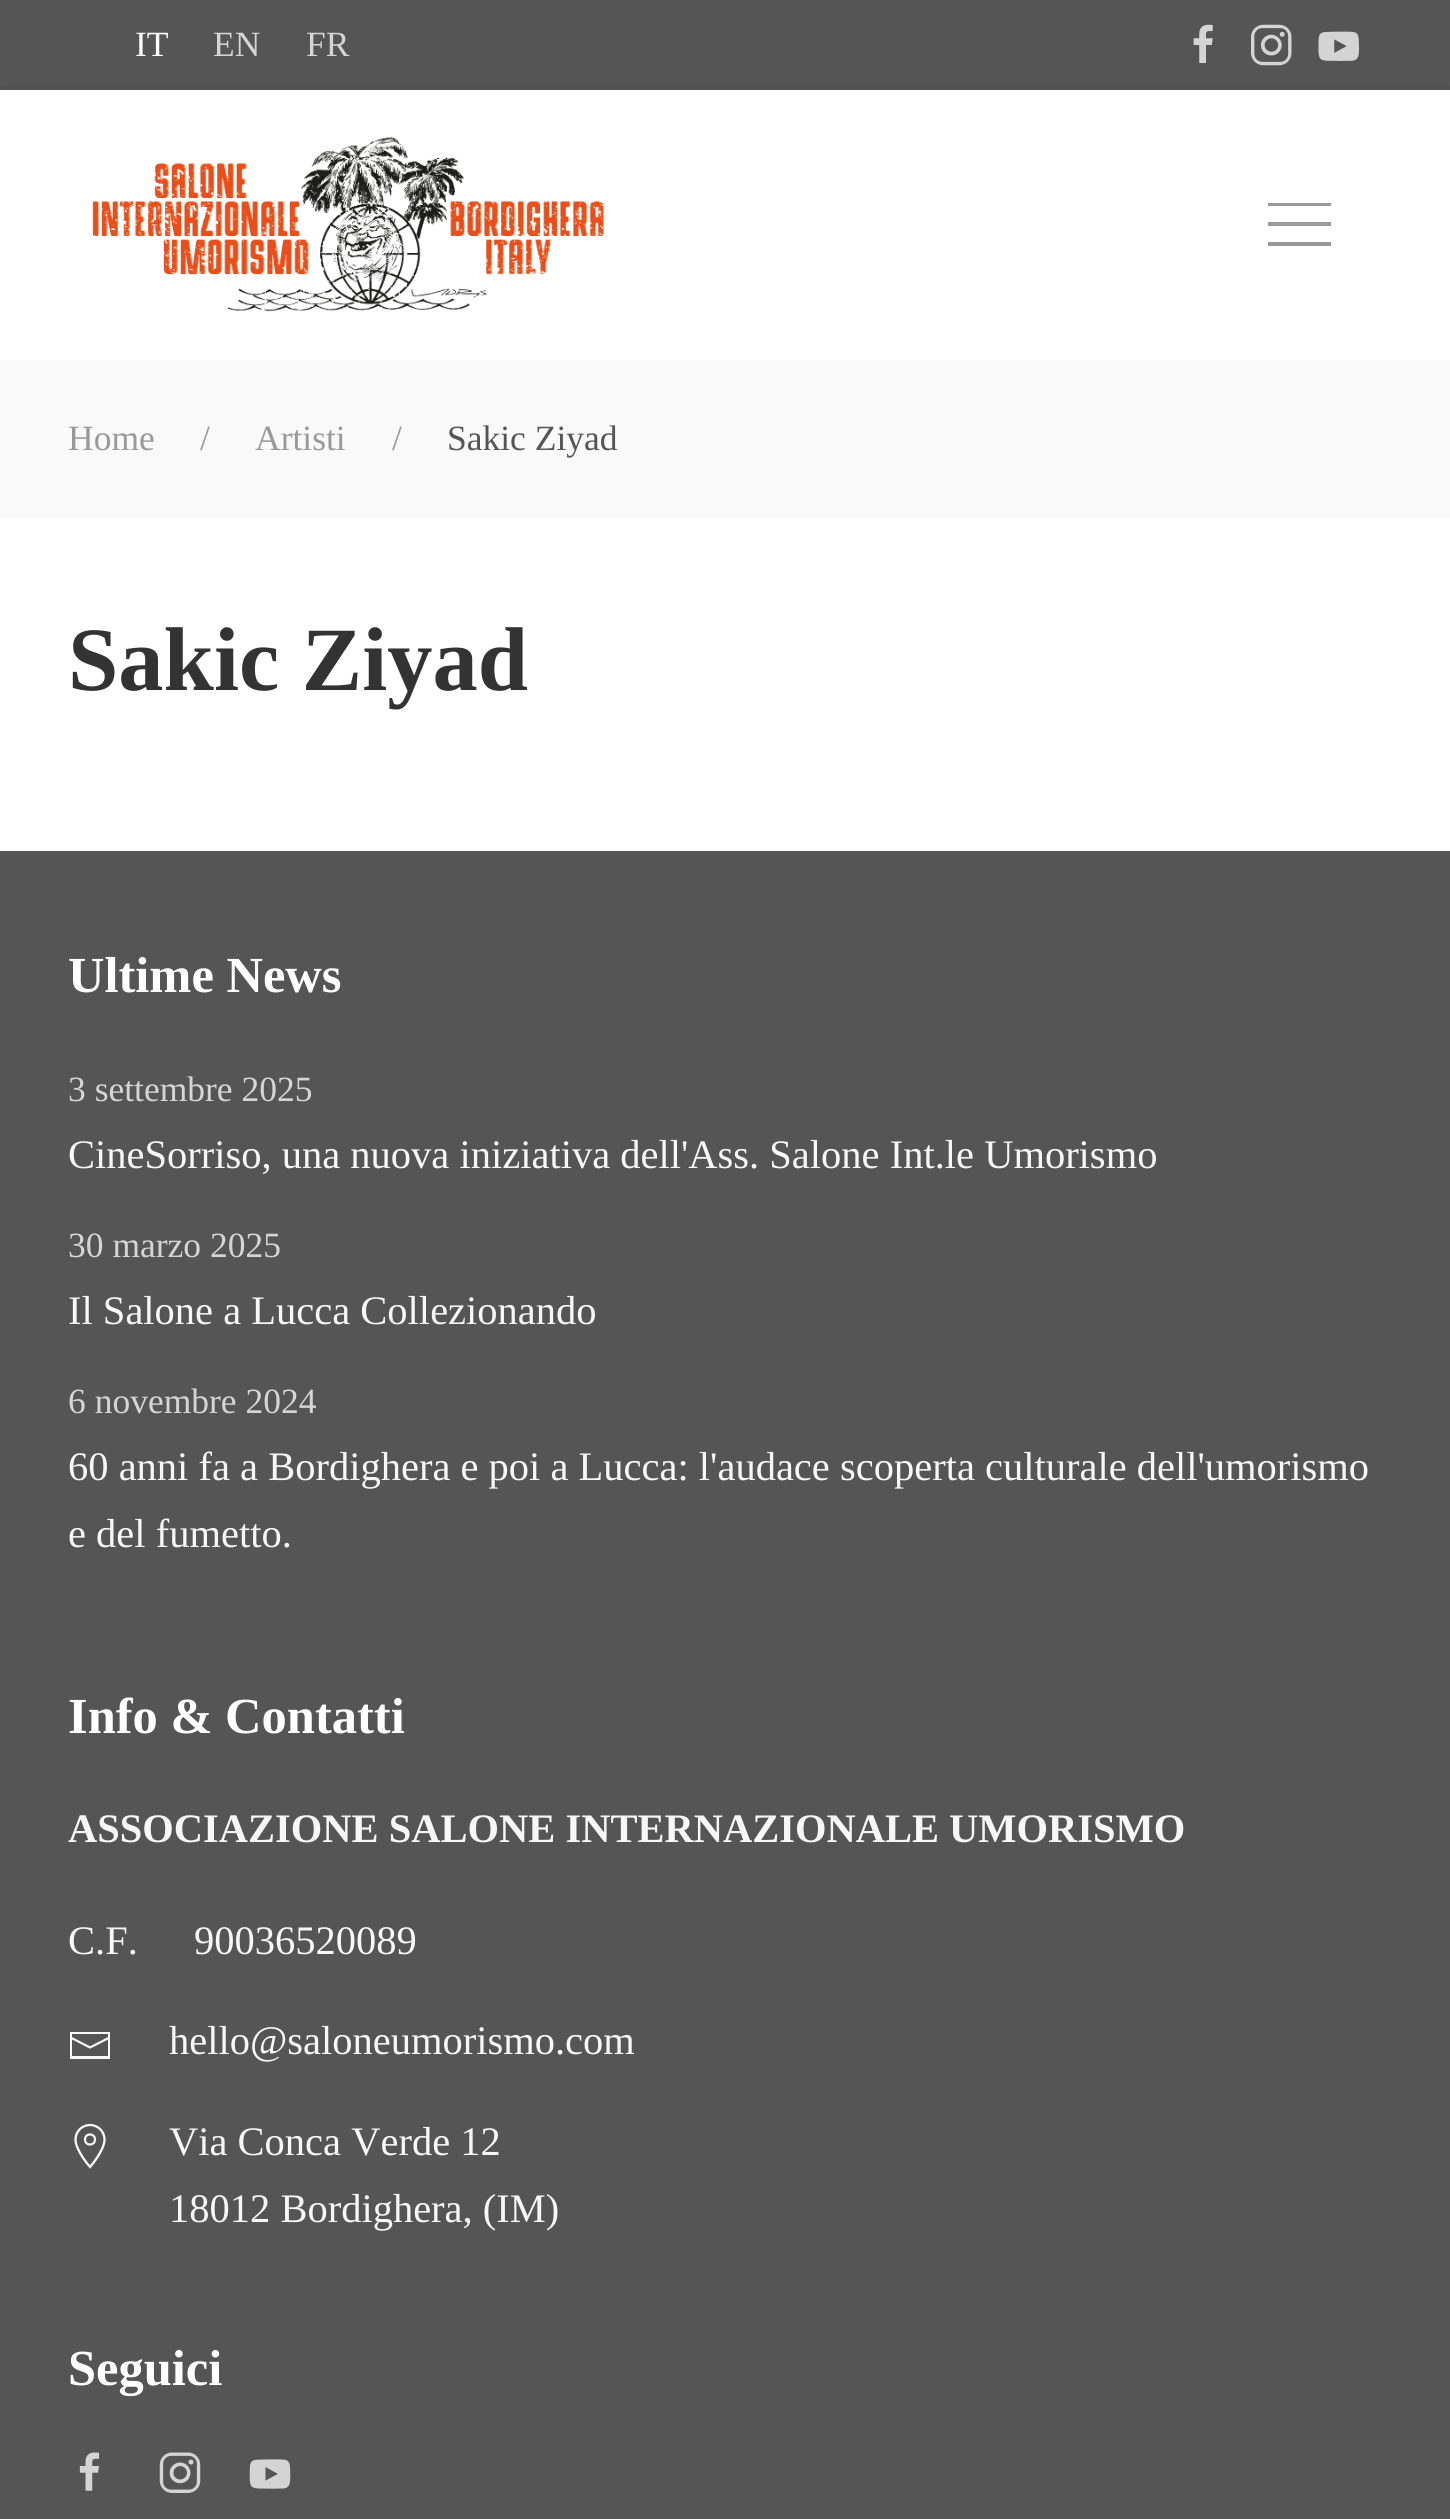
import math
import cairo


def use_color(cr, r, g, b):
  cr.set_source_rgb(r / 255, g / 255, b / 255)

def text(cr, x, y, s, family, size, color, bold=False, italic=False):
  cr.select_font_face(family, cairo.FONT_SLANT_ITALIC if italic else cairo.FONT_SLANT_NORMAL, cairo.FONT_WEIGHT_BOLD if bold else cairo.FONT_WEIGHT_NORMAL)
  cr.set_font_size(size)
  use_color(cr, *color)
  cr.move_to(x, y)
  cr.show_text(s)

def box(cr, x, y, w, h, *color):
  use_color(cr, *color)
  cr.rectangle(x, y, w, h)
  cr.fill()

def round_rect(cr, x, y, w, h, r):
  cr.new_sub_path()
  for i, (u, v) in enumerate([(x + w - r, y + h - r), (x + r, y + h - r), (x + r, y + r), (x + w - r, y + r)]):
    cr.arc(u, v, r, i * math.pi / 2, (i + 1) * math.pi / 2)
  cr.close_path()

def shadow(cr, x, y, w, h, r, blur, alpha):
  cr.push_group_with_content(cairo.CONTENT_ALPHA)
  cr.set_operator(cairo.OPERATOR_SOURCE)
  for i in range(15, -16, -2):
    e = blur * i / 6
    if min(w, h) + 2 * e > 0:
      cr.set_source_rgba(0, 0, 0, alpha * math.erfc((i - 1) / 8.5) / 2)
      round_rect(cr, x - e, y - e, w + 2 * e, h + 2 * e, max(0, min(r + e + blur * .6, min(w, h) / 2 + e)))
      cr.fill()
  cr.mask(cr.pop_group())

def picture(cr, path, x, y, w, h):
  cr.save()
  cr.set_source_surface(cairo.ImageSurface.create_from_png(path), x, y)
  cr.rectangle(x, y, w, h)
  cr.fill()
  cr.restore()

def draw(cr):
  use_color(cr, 255, 255, 255)
  cr.paint()
  box(cr, 0, 0, 1450, 90, 85, 85, 85)
  picture(cr, "img_01.png", 1193, 24, 20, 39)
  picture(cr, "img_02.png", 1251, 24, 41, 42)
  picture(cr, "img_03.png", 1318, 31, 41, 30)
  cr.save()
  cr.rectangle(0, 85, 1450, 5)
  cr.clip()
  use_color(cr, 0, 0, 0)
  shadow(cr, 0, 95, 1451, 270, 0, 9, 0.16)
  cr.restore()
  picture(cr, "img_04.png", 92, 136, 512, 176)
  box(cr, 1268, 203, 63, 3, 153, 153, 153)
  box(cr, 1268, 222, 63, 4, 153, 153, 153)
  box(cr, 1268, 242, 63, 4, 153, 153, 153)
  box(cr, 0, 360, 1450, 158, 249, 249, 249)
  box(cr, 0, 851, 1450, 1668, 85, 85, 85)
  cr.new_path()
  cr.move_to(70.5, 2037.5)
  cr.line_to(90, 2047.5)
  cr.line_to(109.5, 2037.5)
  use_color(cr, 247, 247, 247)
  cr.set_line_width(2.2)
  cr.stroke()
  cr.set_source_rgba(1, 1, 1, 0.95)
  cr.new_path()
  cr.move_to(70, 2032)
  cr.line_to(70, 2059)
  cr.line_to(110, 2059)
  cr.line_to(110, 2032)
  cr.close_path()
  cr.move_to(108, 2056)
  cr.line_to(72, 2056)
  cr.line_to(72, 2034)
  cr.line_to(108, 2034)
  cr.close_path()
  cr.fill()
  cr.new_path()
  cr.move_to(90, 2125)
  cr.curve_to(82, 2125, 75.5, 2131.5, 75.5, 2139.5)
  cr.curve_to(75.5, 2150.5, 90, 2167, 90, 2167)
  cr.curve_to(90, 2167, 104.5, 2150.5, 104.5, 2139.5)
  cr.curve_to(104.5, 2131.5, 98, 2125, 90, 2125)
  cr.close_path()
  use_color(cr, 247, 247, 247)
  cr.set_line_width(2.3)
  cr.stroke()
  cr.arc(90, 2139.5, 5, 0, 2 * math.pi)
  cr.set_line_width(2.2)
  cr.stroke()
  picture(cr, "img_05.png", 79, 2452, 20, 39)
  picture(cr, "img_06.png", 159, 2452, 42, 41)
  picture(cr, "img_07.png", 249, 2459, 42, 30)
  text(cr, 135, 56, "IT", "Liberation Serif", 35.5, (255, 255, 255))
  text(cr, 213, 56, "EN", "Liberation Serif", 35.5, (213, 213, 213))
  text(cr, 306, 56, "FR", "Liberation Serif", 35.5, (213, 213, 213))
  text(cr, 68, 450, "Home", "Liberation Serif", 35.5, (153, 153, 153))
  text(cr, 200, 450, "/", "Liberation Serif", 35.5, (153, 153, 153))
  text(cr, 255, 450, "Artisti", "Liberation Serif", 35.5, (153, 153, 153))
  text(cr, 392, 450, "/", "Liberation Serif", 35.5, (153, 153, 153))
  text(cr, 447, 450, "Sakic Ziyad", "Liberation Serif", 35.5, (85, 85, 85))
  text(cr, 68, 690, "Sakic Ziyad", "Liberation Serif", 90.5, (51, 51, 51), bold=True)
  text(cr, 68, 992, "Ultime News", "Liberation Serif", 50.5, (255, 255, 255), bold=True)
  text(cr, 68, 1101, "3 settembre 2025", "Liberation Serif", 35.5, (213, 213, 213))
  text(cr, 68, 1168, "CineSorriso, una nuova iniziativa dell'Ass. Salone Int.le Umorismo", "Liberation Serif", 40.5, (247, 247, 247))
  text(cr, 68, 1257, "30 marzo 2025", "Liberation Serif", 35.5, (213, 213, 213))
  text(cr, 68, 1324, "Il Salone a Lucca Collezionando", "Liberation Serif", 40.5, (247, 247, 247))
  text(cr, 68, 1413, "6 novembre 2024", "Liberation Serif", 35.5, (213, 213, 213))
  text(cr, 68, 1480, "60 anni fa a Bordighera e poi a Lucca: l'audace scoperta culturale dell'umorismo", "Liberation Serif", 40.5, (247, 247, 247))
  text(cr, 68, 1547, "e del fumetto.", "Liberation Serif", 40.5, (247, 247, 247))
  text(cr, 68, 1733, "Info & Contatti", "Liberation Serif", 50.5, (255, 255, 255), bold=True)
  text(cr, 68, 1842, "ASSOCIAZIONE SALONE INTERNAZIONALE UMORISMO", "Liberation Serif", 40.5, (247, 247, 247), bold=True)
  text(cr, 68, 1954, "C.F.", "Liberation Serif", 40.5, (247, 247, 247))
  text(cr, 194, 1954, "90036520089", "Liberation Serif", 40.5, (247, 247, 247))
  text(cr, 169, 2054, "hello@saloneumorismo.com", "Liberation Serif", 40.5, (247, 247, 247))
  text(cr, 169, 2155, "Via Conca Verde 12", "Liberation Serif", 40.5, (247, 247, 247))
  text(cr, 169, 2222, "18012 Bordighera, (IM)", "Liberation Serif", 40.5, (247, 247, 247))
  text(cr, 68, 2385, "Seguici", "Liberation Serif", 50.5, (255, 255, 255), bold=True)


surface = cairo.ImageSurface(cairo.FORMAT_RGB24, 1450, 2519)
cr = cairo.Context(surface)
options = cairo.FontOptions()
options.set_hint_metrics(cairo.HINT_METRICS_OFF)
options.set_hint_style(cairo.HINT_STYLE_NONE)
cr.set_font_options(options)
cr.set_miter_limit(4)
draw(cr)
surface.write_to_png("out.png")
